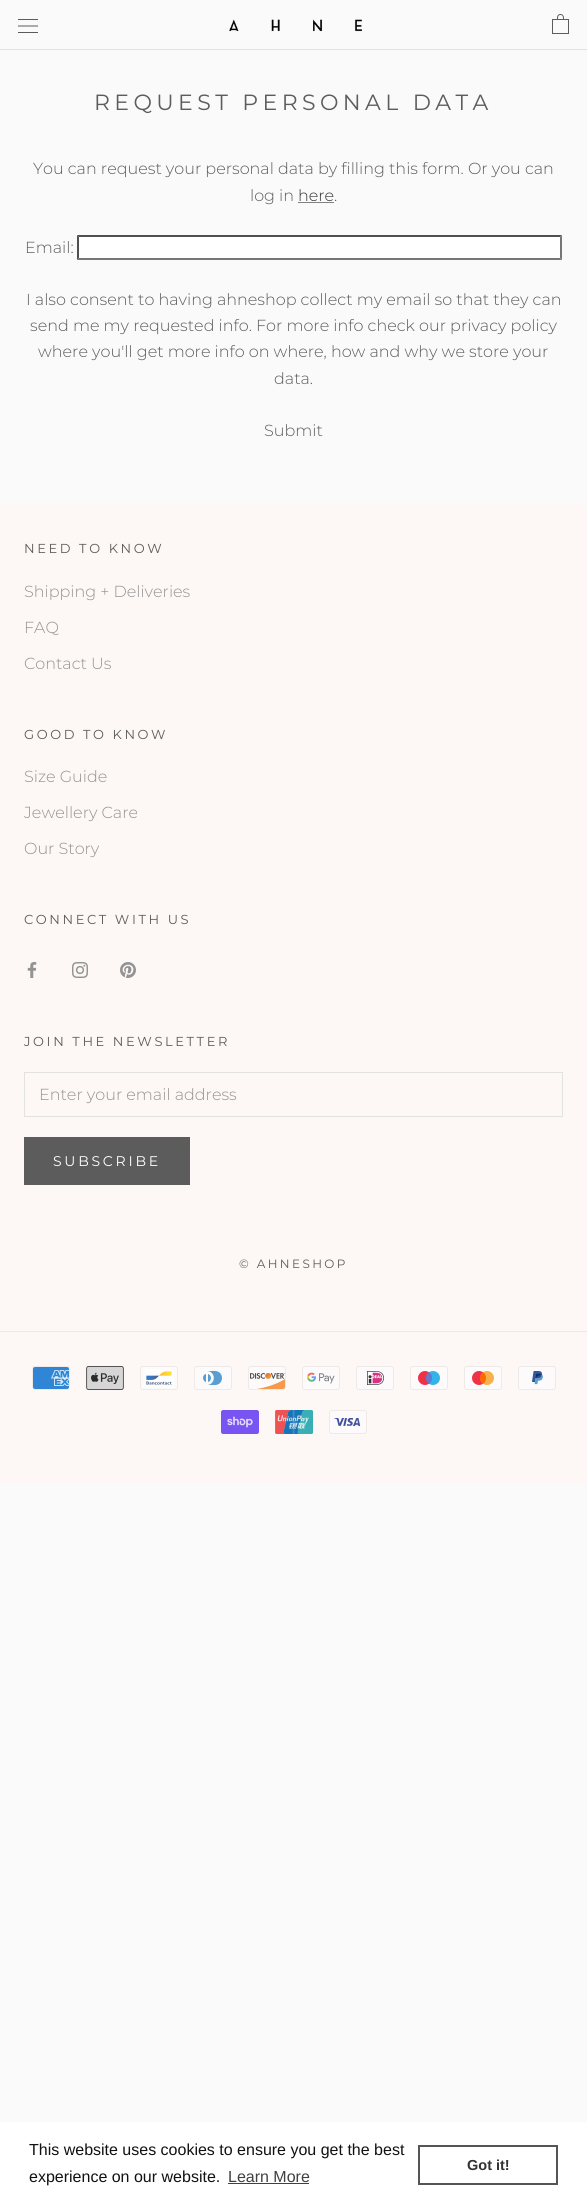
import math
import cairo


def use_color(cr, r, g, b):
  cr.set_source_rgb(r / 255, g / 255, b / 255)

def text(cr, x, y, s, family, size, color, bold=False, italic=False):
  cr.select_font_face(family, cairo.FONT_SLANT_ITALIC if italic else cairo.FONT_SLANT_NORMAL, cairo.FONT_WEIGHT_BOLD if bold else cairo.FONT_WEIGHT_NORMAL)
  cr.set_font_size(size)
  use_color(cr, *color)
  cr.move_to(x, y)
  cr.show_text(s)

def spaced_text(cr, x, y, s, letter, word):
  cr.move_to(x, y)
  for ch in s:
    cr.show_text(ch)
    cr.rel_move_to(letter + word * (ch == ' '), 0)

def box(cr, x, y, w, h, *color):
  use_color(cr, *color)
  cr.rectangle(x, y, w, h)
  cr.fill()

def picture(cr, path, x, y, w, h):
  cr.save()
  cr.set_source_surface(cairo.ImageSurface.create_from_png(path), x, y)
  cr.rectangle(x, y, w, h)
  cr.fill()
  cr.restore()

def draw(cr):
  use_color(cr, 250, 250, 250)
  cr.paint()
  box(cr, 0, 49, 587, 1, 226, 226, 226)
  picture(cr, "img_01.png", 18, 19, 20, 14)
  picture(cr, "img_02.png", 229, 19, 133, 13)
  picture(cr, "img_03.png", 552, 14, 17, 20)
  box(cr, 298, 202, 36, 1, 130, 130, 130)
  box(cr, 77, 235, 485, 25, 255, 255, 255)
  use_color(cr, 79, 79, 79)
  cr.new_path()
  cr.move_to(77, 235)
  cr.line_to(562, 235)
  cr.line_to(560, 237)
  cr.line_to(79, 237)
  cr.close_path()
  cr.fill()
  use_color(cr, 118, 118, 118)
  cr.new_path()
  cr.move_to(562, 235)
  cr.line_to(562, 260)
  cr.line_to(560, 258)
  cr.line_to(560, 237)
  cr.close_path()
  cr.fill()
  cr.new_path()
  cr.move_to(562, 260)
  cr.line_to(77, 260)
  cr.line_to(79, 258)
  cr.line_to(560, 258)
  cr.close_path()
  cr.fill()
  use_color(cr, 79, 79, 79)
  cr.new_path()
  cr.move_to(77, 260)
  cr.line_to(77, 235)
  cr.line_to(79, 237)
  cr.line_to(79, 258)
  cr.close_path()
  cr.fill()
  box(cr, 0, 504, 587, 979, 253, 247, 245)
  picture(cr, "img_04.png", 27, 962, 10, 16)
  picture(cr, "img_05.png", 72, 962, 16, 16)
  picture(cr, "img_06.png", 120, 962, 16, 16)
  cr.rectangle(24.5, 1072.5, 538, 44)
  use_color(cr, 226, 226, 226)
  cr.set_line_width(1)
  cr.stroke()
  cr.rectangle(24.5, 1137.5, 165, 47)
  use_color(cr, 92, 92, 92)
  cr.stroke()
  box(cr, 25, 1138, 164, 46, 92, 92, 92)
  box(cr, 0, 1331, 587, 1, 237, 232, 230)
  picture(cr, "img_07.png", 32, 1366, 38, 24)
  picture(cr, "img_08.png", 86, 1366, 38, 24)
  picture(cr, "img_09.png", 140, 1366, 38, 24)
  picture(cr, "img_10.png", 194, 1366, 38, 24)
  picture(cr, "img_11.png", 248, 1366, 38, 24)
  picture(cr, "img_12.png", 302, 1366, 38, 24)
  picture(cr, "img_13.png", 356, 1366, 38, 24)
  picture(cr, "img_14.png", 410, 1366, 38, 24)
  picture(cr, "img_15.png", 464, 1366, 38, 24)
  picture(cr, "img_16.png", 518, 1366, 38, 24)
  picture(cr, "img_17.png", 221, 1410, 38, 24)
  picture(cr, "img_18.png", 275, 1410, 38, 24)
  picture(cr, "img_19.png", 329, 1410, 38, 24)
  box(cr, 0, 2122, 587, 86, 255, 255, 255)
  box(cr, 228, 2183, 81, 1, 65, 65, 65)
  cr.rectangle(419, 2146, 138, 38)
  use_color(cr, 85, 85, 85)
  cr.set_line_width(2)
  cr.stroke()
  cr.select_font_face("Montserrat")
  cr.set_font_size(22)
  use_color(cr, 92, 92, 92)
  spaced_text(cr, 94, 110, "REQUEST PERSONAL DATA", 4.4, 0)
  text(cr, 33, 174, "You can request your personal data by filling this form. Or you can", "Montserrat Light", 16, (92, 92, 92))
  text(cr, 250, 201, "log in", "Montserrat Light", 16, (92, 92, 92))
  text(cr, 298, 201, "here", "Montserrat Light", 16, (50, 50, 50))
  text(cr, 334, 201, ".", "Montserrat Light", 16, (92, 92, 92))
  text(cr, 25, 253, "Email:", "Montserrat Light", 16, (92, 92, 92))
  text(cr, 26, 305, "I also consent to having ahneshop collect my email so that they can", "Montserrat Light", 16, (92, 92, 92))
  text(cr, 30, 331, "send me my requested info. For more info check our privacy policy", "Montserrat Light", 16, (92, 92, 92))
  text(cr, 38, 357, "where you'll get more info on where, how and why we store your", "Montserrat Light", 16, (92, 92, 92))
  text(cr, 274, 384, "data.", "Montserrat Light", 16, (92, 92, 92))
  text(cr, 264, 436, "Submit", "Montserrat Light", 16, (92, 92, 92))
  cr.select_font_face("Montserrat")
  cr.set_font_size(13)
  spaced_text(cr, 24, 553, "NEED TO KNOW", 2.6, 0)
  text(cr, 24, 597, "Shipping + Deliveries", "Montserrat Light", 16, (147, 147, 147))
  text(cr, 24, 633, "FAQ", "Montserrat Light", 16, (147, 147, 147))
  text(cr, 24, 669, "Contact Us", "Montserrat Light", 16, (147, 147, 147))
  cr.select_font_face("Montserrat")
  cr.set_font_size(13)
  use_color(cr, 92, 92, 92)
  spaced_text(cr, 24, 739, "GOOD TO KNOW", 2.6, 0)
  text(cr, 24, 782, "Size Guide", "Montserrat Light", 16, (147, 147, 147))
  text(cr, 24, 818, "Jewellery Care", "Montserrat Light", 16, (147, 147, 147))
  text(cr, 24, 854, "Our Story", "Montserrat Light", 16, (147, 147, 147))
  cr.select_font_face("Montserrat")
  cr.set_font_size(13)
  use_color(cr, 92, 92, 92)
  spaced_text(cr, 24, 924, "CONNECT WITH US", 2.6, 0)
  spaced_text(cr, 24, 1046, "JOIN THE NEWSLETTER", 2.6, 0)
  text(cr, 39, 1100, "Enter your email address", "Montserrat Light", 16, (147, 147, 147))
  cr.select_font_face("Montserrat")
  cr.set_font_size(14)
  use_color(cr, 255, 255, 255)
  spaced_text(cr, 53, 1166, "SUBSCRIBE", 2.75, 0)
  cr.set_font_size(12)
  use_color(cr, 92, 92, 92)
  spaced_text(cr, 239, 1268, "© AHNESHOP", 2.4, 0)
  text(cr, 29, 2155, "This website uses cookies to ensure you get the best", "Liberation Sans", 16, (17, 17, 17))
  text(cr, 29, 2182, "experience on our website.", "Liberation Sans", 16, (17, 17, 17))
  text(cr, 228, 2182, "Learn More", "Liberation Sans", 16, (65, 65, 65))
  text(cr, 467, 2170, "Got it!", "Liberation Sans", 14.5, (50, 50, 50), bold=True)


surface = cairo.ImageSurface(cairo.FORMAT_RGB24, 587, 2208)
cr = cairo.Context(surface)
options = cairo.FontOptions()
options.set_hint_metrics(cairo.HINT_METRICS_OFF)
options.set_hint_style(cairo.HINT_STYLE_NONE)
cr.set_font_options(options)
cr.set_miter_limit(4)
draw(cr)
surface.write_to_png("out.png")
